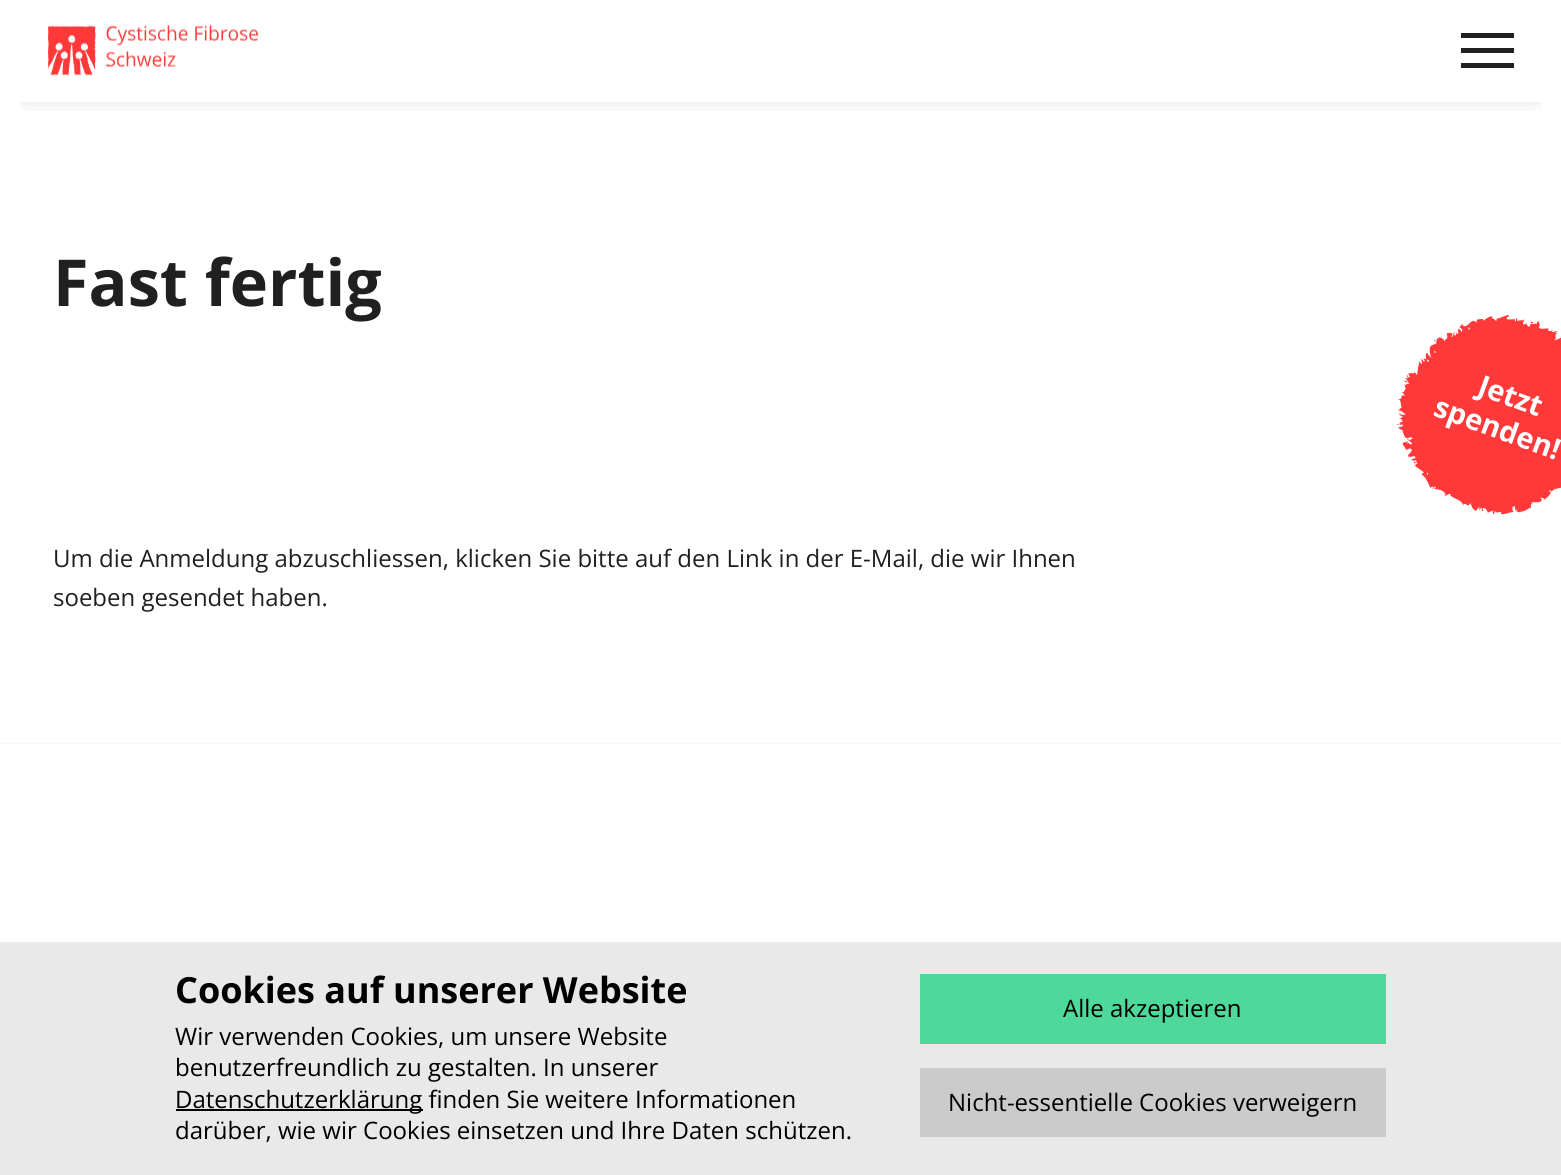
import math
import cairo


def use_color(cr, r, g, b):
  cr.set_source_rgb(r / 255, g / 255, b / 255)

def text(cr, x, y, s, family, size, color, bold=False, italic=False):
  cr.select_font_face(family, cairo.FONT_SLANT_ITALIC if italic else cairo.FONT_SLANT_NORMAL, cairo.FONT_WEIGHT_BOLD if bold else cairo.FONT_WEIGHT_NORMAL)
  cr.set_font_size(size)
  use_color(cr, *color)
  cr.move_to(x, y)
  cr.show_text(s)

def box(cr, x, y, w, h, *color):
  use_color(cr, *color)
  cr.rectangle(x, y, w, h)
  cr.fill()

def round_rect(cr, x, y, w, h, r):
  cr.new_sub_path()
  for i, (u, v) in enumerate([(x + w - r, y + h - r), (x + r, y + h - r), (x + r, y + r), (x + w - r, y + r)]):
    cr.arc(u, v, r, i * math.pi / 2, (i + 1) * math.pi / 2)
  cr.close_path()

def shadow(cr, x, y, w, h, r, blur, alpha):
  cr.push_group_with_content(cairo.CONTENT_ALPHA)
  cr.set_operator(cairo.OPERATOR_SOURCE)
  for i in range(15, -16, -2):
    e = blur * i / 6
    if min(w, h) + 2 * e > 0:
      cr.set_source_rgba(0, 0, 0, alpha * math.erfc((i - 1) / 8.5) / 2)
      round_rect(cr, x - e, y - e, w + 2 * e, h + 2 * e, max(0, min(r + e + blur * .6, min(w, h) / 2 + e)))
      cr.fill()
  cr.mask(cr.pop_group())

def picture(cr, path, x, y, w, h):
  cr.save()
  cr.set_source_surface(cairo.ImageSurface.create_from_png(path), x, y)
  cr.rectangle(x, y, w, h)
  cr.fill()
  cr.restore()

def draw(cr):
  use_color(cr, 255, 255, 255)
  cr.paint()
  cr.save()
  cr.rectangle(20, 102, 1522, 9)
  cr.clip()
  use_color(cr, 32, 32, 32)
  shadow(cr, 27, 39, 1508, 48, 0, 13, 0.6)
  cr.restore()
  picture(cr, "img_01.png", 48, 25, 210, 51)
  box(cr, 1461, 48, 53, 5, 32, 32, 32)
  box(cr, 1461, 33, 53, 5, 32, 32, 32)
  box(cr, 1461, 63, 53, 5, 32, 32, 32)
  picture(cr, "img_02.png", 1396, 315, 165, 200)
  box(cr, 0, 743, 1561, 1, 248, 248, 248)
  picture(cr, "img_03.png", 0, 744, 1561, 198)
  box(cr, 0, 942, 1561, 233, 233, 233, 233)
  box(cr, 176, 1109, 247, 2, 0, 0, 0)
  box(cr, 920, 974, 466, 70, 78, 216, 153)
  box(cr, 920, 1068, 466, 69, 203, 203, 203)
  text(cr, 53, 306, "Fast fertig", "Open Sans", 64.75, (32, 32, 32), bold=True)
  text(cr, 53, 567, "Um die Anmeldung abzuschliessen, klicken Sie bitte auf den Link in der E-Mail, die wir Ihnen", "Open Sans", 24, (32, 32, 32))
  text(cr, 53, 606, "soeben gesendet haben.", "Open Sans", 24, (32, 32, 32))
  cr.save()
  cr.translate(1476, 394)
  cr.rotate(20 * math.pi / 180)
  text(cr, 0, 0, "Jetzt", "Open Sans", 29, (255, 255, 255), bold=True)
  cr.restore()
  cr.save()
  cr.translate(1432, 415)
  cr.rotate(20 * math.pi / 180)
  text(cr, 0, 0, "spenden!", "Open Sans", 29, (255, 255, 255), bold=True)
  cr.restore()
  text(cr, 175, 1003, "Cookies auf unserer Website", "Open Sans", 36, (0, 0, 0), bold=True)
  text(cr, 175, 1045, "Wir verwenden Cookies, um unsere Website", "Open Sans", 24, (0, 0, 0))
  text(cr, 175, 1076, "benutzerfreundlich zu gestalten. In unserer", "Open Sans", 24, (0, 0, 0))
  text(cr, 175, 1108, "Datenschutzerklärung finden Sie weitere Informationen", "Open Sans", 24, (0, 0, 0))
  text(cr, 175, 1139, "darüber, wie wir Cookies einsetzen und Ihre Daten schützen.", "Open Sans", 24, (0, 0, 0))
  text(cr, 1063, 1017, "Alle akzeptieren", "Open Sans", 24, (0, 0, 0))
  text(cr, 948, 1111, "Nicht-essentielle Cookies verweigern", "Open Sans", 24, (0, 0, 0))


surface = cairo.ImageSurface(cairo.FORMAT_RGB24, 1561, 1175)
cr = cairo.Context(surface)
options = cairo.FontOptions()
options.set_hint_metrics(cairo.HINT_METRICS_OFF)
options.set_hint_style(cairo.HINT_STYLE_NONE)
cr.set_font_options(options)
cr.set_miter_limit(4)
draw(cr)
surface.write_to_png("out.png")
